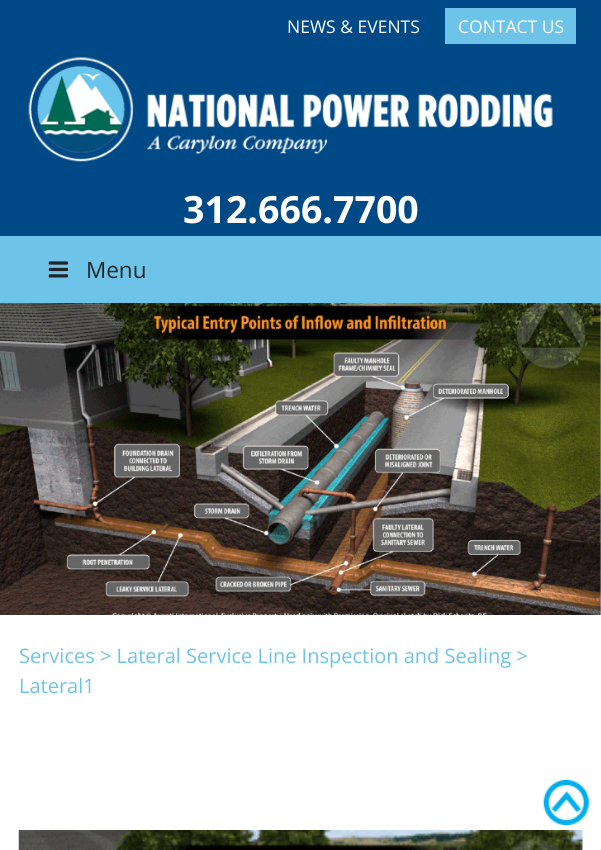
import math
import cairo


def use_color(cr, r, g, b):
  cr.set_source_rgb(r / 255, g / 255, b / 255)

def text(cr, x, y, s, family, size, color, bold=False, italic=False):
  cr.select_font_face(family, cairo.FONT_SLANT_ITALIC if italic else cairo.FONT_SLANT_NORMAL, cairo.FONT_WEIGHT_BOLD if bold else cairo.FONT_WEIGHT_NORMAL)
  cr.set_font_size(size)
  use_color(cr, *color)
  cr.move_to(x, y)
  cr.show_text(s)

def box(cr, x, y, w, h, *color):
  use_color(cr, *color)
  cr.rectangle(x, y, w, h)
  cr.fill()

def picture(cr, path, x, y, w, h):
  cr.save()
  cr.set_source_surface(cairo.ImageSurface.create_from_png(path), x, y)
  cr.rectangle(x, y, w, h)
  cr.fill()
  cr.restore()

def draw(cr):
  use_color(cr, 255, 255, 255)
  cr.paint()
  box(cr, 0, 0, 601, 236, 0, 73, 135)
  box(cr, 445, 8, 131, 36, 110, 196, 232)
  picture(cr, "img_01.png", 28, 57, 525, 105)
  box(cr, 0, 236, 601, 67, 110, 196, 232)
  picture(cr, "img_02.png", 48, 261, 21, 17)
  picture(cr, "img_03.png", 0, 303, 601, 312)
  picture(cr, "img_04.png", 18, 830, 565, 20)
  picture(cr, "img_05.png", 543, 780, 46, 45)
  text(cr, 287, 33, "NEWS & EVENTS", "Open Sans", 17.5, (255, 255, 255))
  text(cr, 458, 33, "CONTACT US", "Open Sans", 17.5, (255, 255, 255))
  text(cr, 183, 223, "312.666.7700", "Open Sans", 37.5, (255, 255, 255), bold=True)
  text(cr, 86, 278, "Menu", "Open Sans", 22.5, (33, 37, 41))
  text(cr, 19, 663, "Services > Lateral Service Line Inspection and Sealing >", "Open Sans", 20, (110, 196, 232))
  text(cr, 19, 693, "Lateral1", "Open Sans", 20, (110, 196, 232))


surface = cairo.ImageSurface(cairo.FORMAT_RGB24, 601, 850)
cr = cairo.Context(surface)
options = cairo.FontOptions()
options.set_hint_metrics(cairo.HINT_METRICS_OFF)
options.set_hint_style(cairo.HINT_STYLE_NONE)
cr.set_font_options(options)
cr.set_miter_limit(4)
draw(cr)
surface.write_to_png("out.png")
